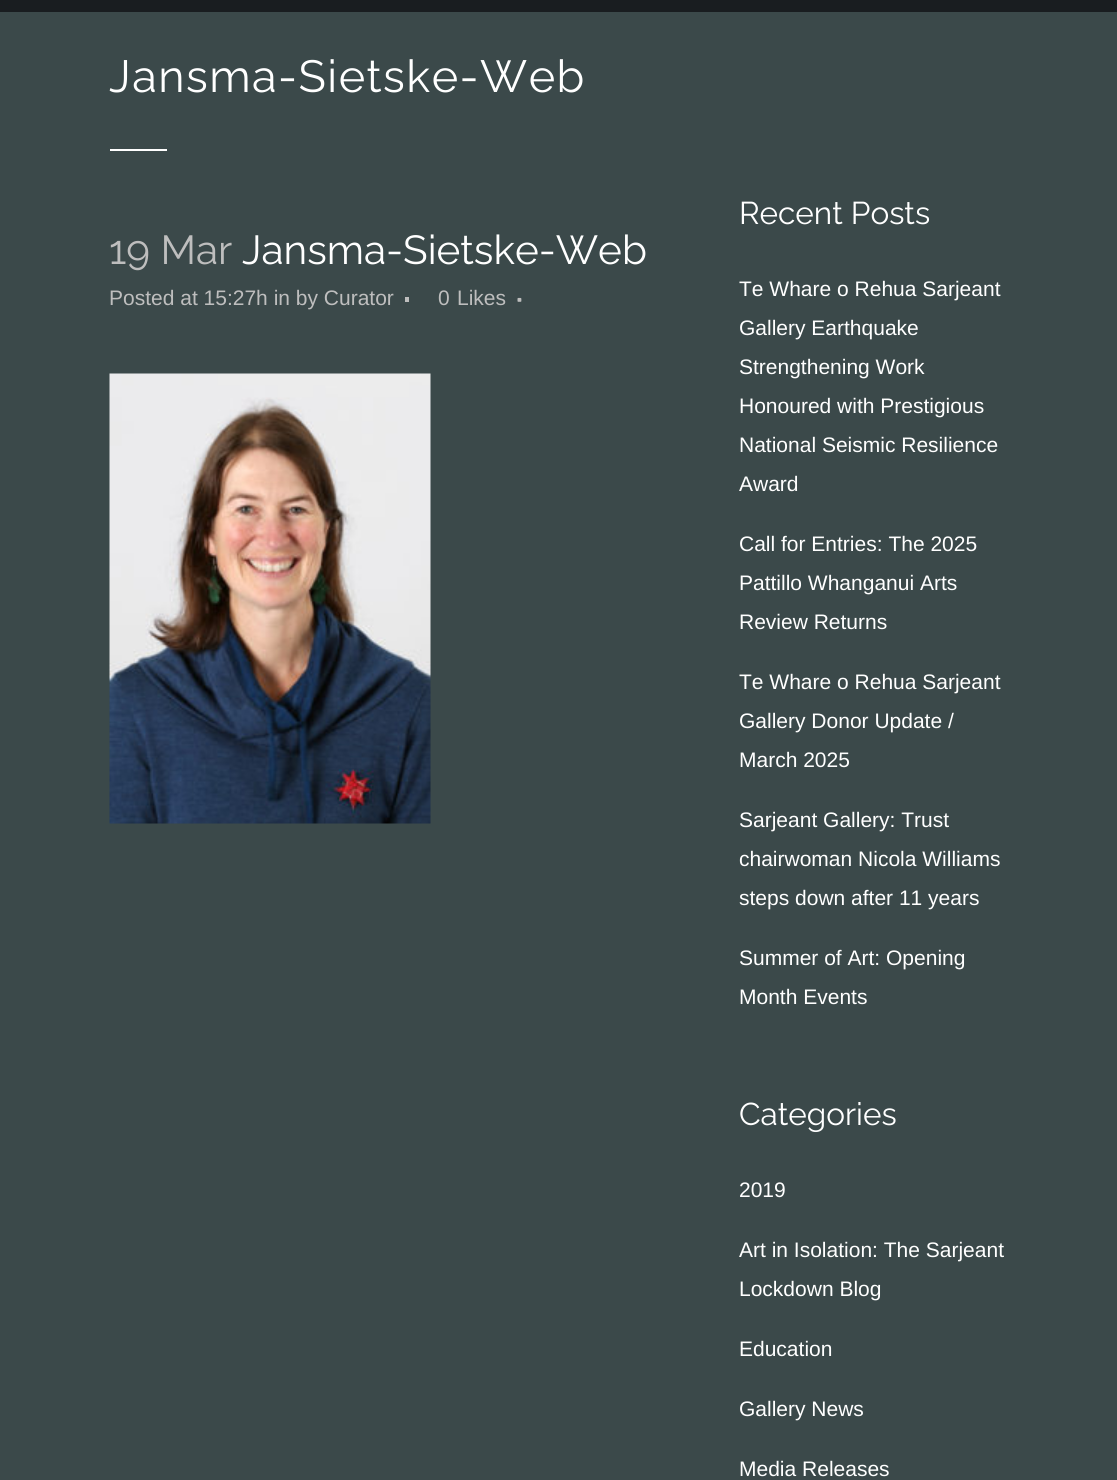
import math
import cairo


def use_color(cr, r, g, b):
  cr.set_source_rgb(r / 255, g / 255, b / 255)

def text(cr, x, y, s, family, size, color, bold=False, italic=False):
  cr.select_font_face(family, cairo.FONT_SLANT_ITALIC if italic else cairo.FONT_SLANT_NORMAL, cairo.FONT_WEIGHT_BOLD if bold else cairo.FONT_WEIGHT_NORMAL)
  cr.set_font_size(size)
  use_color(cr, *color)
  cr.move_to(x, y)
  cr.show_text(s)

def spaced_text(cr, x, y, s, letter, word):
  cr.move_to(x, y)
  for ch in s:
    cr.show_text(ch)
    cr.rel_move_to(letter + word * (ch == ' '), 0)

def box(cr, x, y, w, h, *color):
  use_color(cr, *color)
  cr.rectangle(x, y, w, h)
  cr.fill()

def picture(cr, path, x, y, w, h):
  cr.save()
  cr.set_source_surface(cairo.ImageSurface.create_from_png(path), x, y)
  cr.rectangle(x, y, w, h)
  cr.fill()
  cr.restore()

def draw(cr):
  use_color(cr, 59, 73, 74)
  cr.paint()
  box(cr, 0, 0, 1117, 12, 25, 29, 32)
  box(cr, 110, 149, 57, 2, 255, 255, 255)
  box(cr, 405, 297, 4, 5, 190, 190, 190)
  picture(cr, "img_01.png", 517, 297, 5, 5)
  picture(cr, "img_02.png", 109, 373, 322, 451)
  cr.select_font_face("Raleway")
  cr.set_font_size(45)
  use_color(cr, 255, 255, 255)
  spaced_text(cr, 109, 92, "Jansma-Sietske-Web", 1.5, 0)
  text(cr, 109, 264, "19 Mar", "Raleway", 40.5, (190, 190, 190))
  text(cr, 242, 264, "Jansma-Sietske-Web", "Raleway", 40.5, (255, 255, 255))
  text(cr, 109, 305, "Posted at 15:27h in by Curator", "Liberation Sans", 21, (190, 190, 190))
  text(cr, 438, 305, "0", "Liberation Sans", 21, (190, 190, 190))
  text(cr, 457, 305, "Likes", "Liberation Sans", 21, (190, 190, 190))
  text(cr, 739, 224, "Recent Posts", "Raleway", 31.5, (255, 255, 255))
  text(cr, 739, 296, "Te Whare o Rehua Sarjeant", "Liberation Sans", 21, (255, 255, 255))
  text(cr, 739, 335, "Gallery Earthquake", "Liberation Sans", 21, (255, 255, 255))
  text(cr, 739, 374, "Strengthening Work", "Liberation Sans", 21, (255, 255, 255))
  text(cr, 739, 413, "Honoured with Prestigious", "Liberation Sans", 21, (255, 255, 255))
  text(cr, 739, 452, "National Seismic Resilience", "Liberation Sans", 21, (255, 255, 255))
  text(cr, 739, 491, "Award", "Liberation Sans", 21, (255, 255, 255))
  text(cr, 739, 551, "Call for Entries: The 2025", "Liberation Sans", 21, (255, 255, 255))
  text(cr, 739, 590, "Pattillo Whanganui Arts", "Liberation Sans", 21, (255, 255, 255))
  text(cr, 739, 629, "Review Returns", "Liberation Sans", 21, (255, 255, 255))
  text(cr, 739, 689, "Te Whare o Rehua Sarjeant", "Liberation Sans", 21, (255, 255, 255))
  text(cr, 739, 728, "Gallery Donor Update /", "Liberation Sans", 21, (255, 255, 255))
  text(cr, 739, 767, "March 2025", "Liberation Sans", 21, (255, 255, 255))
  text(cr, 739, 827, "Sarjeant Gallery: Trust", "Liberation Sans", 21, (255, 255, 255))
  text(cr, 739, 866, "chairwoman Nicola Williams", "Liberation Sans", 21, (255, 255, 255))
  text(cr, 739, 905, "steps down after 11 years", "Liberation Sans", 21, (255, 255, 255))
  text(cr, 739, 965, "Summer of Art: Opening", "Liberation Sans", 21, (255, 255, 255))
  text(cr, 739, 1004, "Month Events", "Liberation Sans", 21, (255, 255, 255))
  text(cr, 739, 1125, "Categories", "Raleway", 31.5, (255, 255, 255))
  text(cr, 739, 1197, "2019", "Liberation Sans", 21, (255, 255, 255))
  text(cr, 739, 1257, "Art in Isolation: The Sarjeant", "Liberation Sans", 21, (255, 255, 255))
  text(cr, 739, 1296, "Lockdown Blog", "Liberation Sans", 21, (255, 255, 255))
  text(cr, 739, 1356, "Education", "Liberation Sans", 21, (255, 255, 255))
  text(cr, 739, 1416, "Gallery News", "Liberation Sans", 21, (255, 255, 255))
  text(cr, 739, 1476, "Media Releases", "Liberation Sans", 21, (255, 255, 255))


surface = cairo.ImageSurface(cairo.FORMAT_RGB24, 1117, 1480)
cr = cairo.Context(surface)
options = cairo.FontOptions()
options.set_hint_metrics(cairo.HINT_METRICS_OFF)
options.set_hint_style(cairo.HINT_STYLE_NONE)
cr.set_font_options(options)
cr.set_miter_limit(4)
draw(cr)
surface.write_to_png("out.png")
